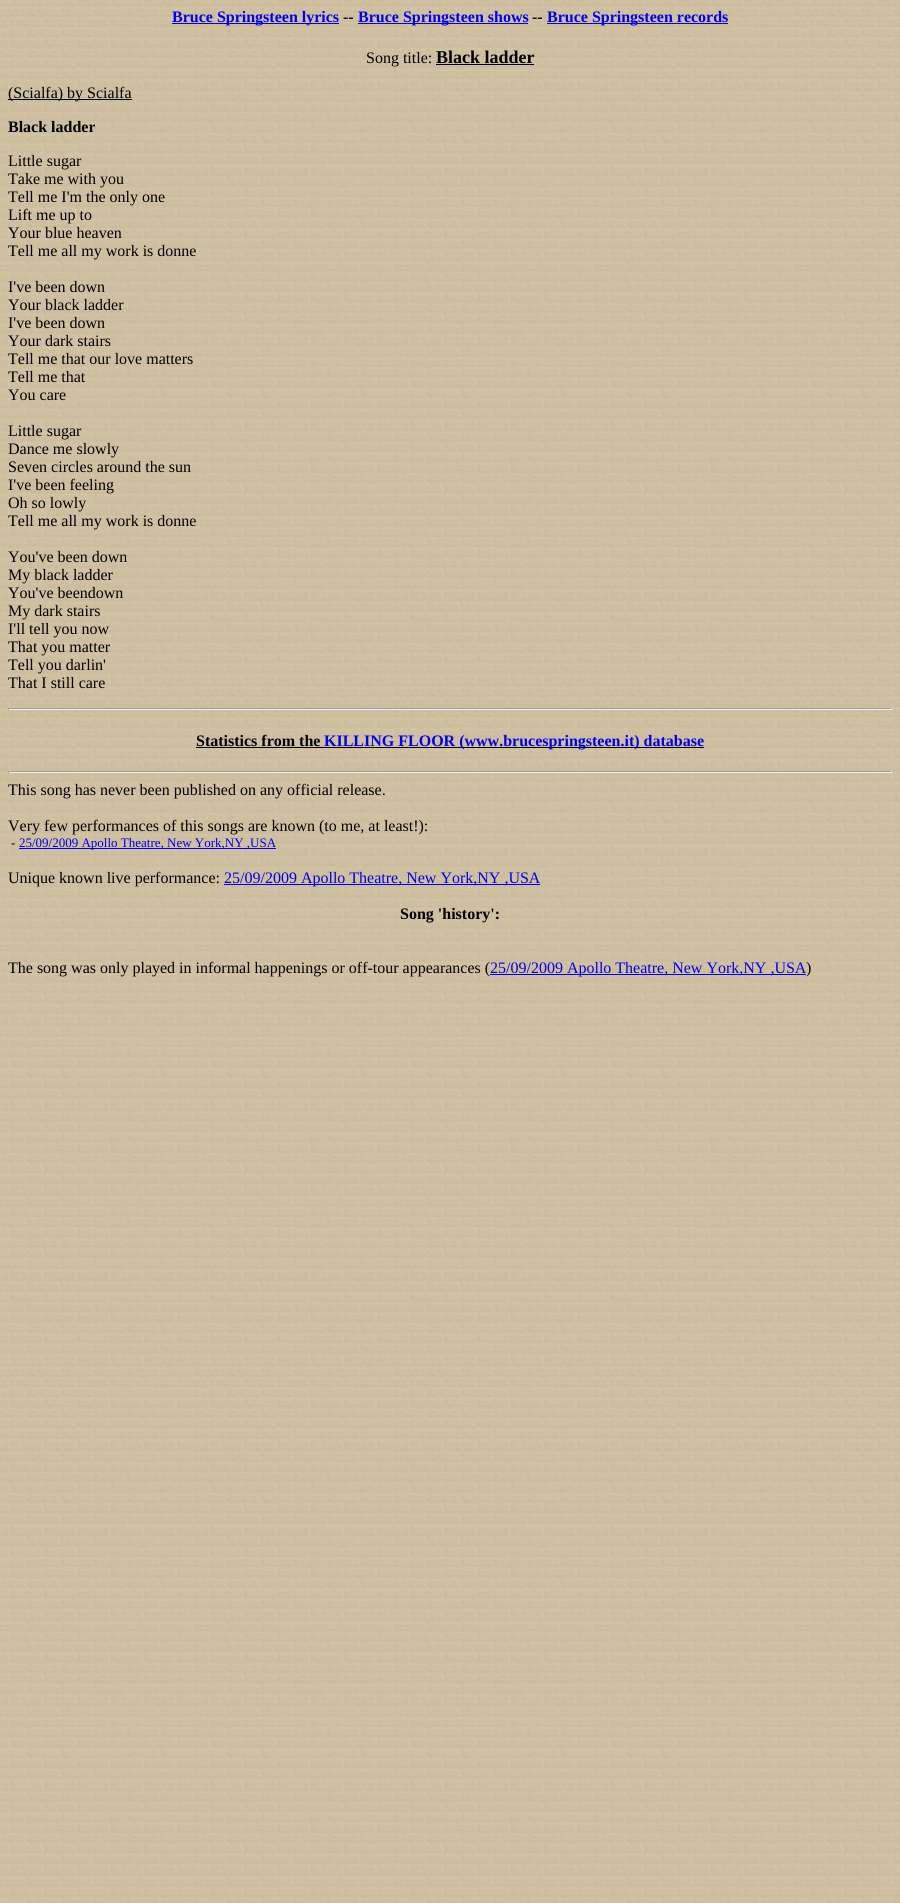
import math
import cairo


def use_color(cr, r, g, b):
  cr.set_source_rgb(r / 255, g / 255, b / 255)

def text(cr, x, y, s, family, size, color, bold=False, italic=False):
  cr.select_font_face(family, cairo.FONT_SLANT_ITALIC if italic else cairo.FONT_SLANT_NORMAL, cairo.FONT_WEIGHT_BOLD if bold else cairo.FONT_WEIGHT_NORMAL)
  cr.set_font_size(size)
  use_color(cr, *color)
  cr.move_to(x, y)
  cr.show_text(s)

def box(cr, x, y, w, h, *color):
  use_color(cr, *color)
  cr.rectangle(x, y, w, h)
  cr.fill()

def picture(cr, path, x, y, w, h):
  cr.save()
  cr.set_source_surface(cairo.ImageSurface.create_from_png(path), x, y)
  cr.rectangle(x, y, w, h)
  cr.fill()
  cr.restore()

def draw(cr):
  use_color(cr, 255, 255, 255)
  cr.paint()
  picture(cr, "img_01.png", 0, 0, 900, 1903)
  box(cr, 172, 23, 167, 1, 0, 0, 238)
  box(cr, 358, 23, 170, 1, 0, 0, 238)
  box(cr, 547, 23, 181, 1, 0, 0, 238)
  box(cr, 436, 64, 98, 1, 0, 0, 0)
  box(cr, 8, 99, 124, 1, 0, 0, 0)
  box(cr, 8, 708, 884, 1, 159, 159, 159)
  box(cr, 891, 708, 1, 2, 238, 238, 238)
  box(cr, 8, 709, 884, 1, 238, 238, 238)
  box(cr, 8, 708, 1, 2, 159, 159, 159)
  box(cr, 196, 747, 508, 1, 0, 0, 0)
  box(cr, 8, 771, 884, 1, 159, 159, 159)
  box(cr, 891, 771, 1, 2, 238, 238, 238)
  box(cr, 8, 772, 884, 1, 238, 238, 238)
  box(cr, 8, 771, 1, 2, 159, 159, 159)
  box(cr, 19, 848, 257, 1, 0, 0, 238)
  box(cr, 224, 884, 316, 1, 0, 0, 238)
  box(cr, 490, 974, 316, 1, 0, 0, 238)
  text(cr, 172, 22, "Bruce Springsteen lyrics", "Liberation Serif", 16, (0, 0, 238), bold=True)
  text(cr, 343, 22, "--", "Liberation Serif", 16, (0, 0, 0), bold=True)
  text(cr, 358, 22, "Bruce Springsteen shows", "Liberation Serif", 16, (0, 0, 238), bold=True)
  text(cr, 532, 22, "--", "Liberation Serif", 16, (0, 0, 0), bold=True)
  text(cr, 547, 22, "Bruce Springsteen records", "Liberation Serif", 16, (0, 0, 238), bold=True)
  text(cr, 366, 63, "Song title:", "Liberation Serif", 16, (0, 0, 0))
  text(cr, 436, 63, "Black ladder", "Liberation Serif", 18, (0, 0, 0), bold=True)
  text(cr, 8, 98, "(Scialfa) by Scialfa", "Liberation Serif", 16, (0, 0, 0))
  text(cr, 8, 132, "Black ladder", "Liberation Serif", 16, (0, 0, 0), bold=True)
  text(cr, 8, 166, "Little sugar", "Liberation Serif", 16, (0, 0, 0))
  text(cr, 8, 184, "Take me with you", "Liberation Serif", 16, (0, 0, 0))
  text(cr, 8, 202, "Tell me I'm the only one", "Liberation Serif", 16, (0, 0, 0))
  text(cr, 8, 220, "Lift me up to", "Liberation Serif", 16, (0, 0, 0))
  text(cr, 8, 238, "Your blue heaven", "Liberation Serif", 16, (0, 0, 0))
  text(cr, 8, 256, "Tell me all my work is donne", "Liberation Serif", 16, (0, 0, 0))
  text(cr, 8, 292, "I've been down", "Liberation Serif", 16, (0, 0, 0))
  text(cr, 8, 310, "Your black ladder", "Liberation Serif", 16, (0, 0, 0))
  text(cr, 8, 328, "I've been down", "Liberation Serif", 16, (0, 0, 0))
  text(cr, 8, 346, "Your dark stairs", "Liberation Serif", 16, (0, 0, 0))
  text(cr, 8, 364, "Tell me that our love matters", "Liberation Serif", 16, (0, 0, 0))
  text(cr, 8, 382, "Tell me that", "Liberation Serif", 16, (0, 0, 0))
  text(cr, 8, 400, "You care", "Liberation Serif", 16, (0, 0, 0))
  text(cr, 8, 436, "Little sugar", "Liberation Serif", 16, (0, 0, 0))
  text(cr, 8, 454, "Dance me slowly", "Liberation Serif", 16, (0, 0, 0))
  text(cr, 8, 472, "Seven circles around the sun", "Liberation Serif", 16, (0, 0, 0))
  text(cr, 8, 490, "I've been feeling", "Liberation Serif", 16, (0, 0, 0))
  text(cr, 8, 508, "Oh so lowly", "Liberation Serif", 16, (0, 0, 0))
  text(cr, 8, 526, "Tell me all my work is donne", "Liberation Serif", 16, (0, 0, 0))
  text(cr, 8, 562, "You've been down", "Liberation Serif", 16, (0, 0, 0))
  text(cr, 8, 580, "My black ladder", "Liberation Serif", 16, (0, 0, 0))
  text(cr, 8, 598, "You've beendown", "Liberation Serif", 16, (0, 0, 0))
  text(cr, 8, 616, "My dark stairs", "Liberation Serif", 16, (0, 0, 0))
  text(cr, 8, 634, "I'll tell you now", "Liberation Serif", 16, (0, 0, 0))
  text(cr, 8, 652, "That you matter", "Liberation Serif", 16, (0, 0, 0))
  text(cr, 8, 670, "Tell you darlin'", "Liberation Serif", 16, (0, 0, 0))
  text(cr, 8, 688, "That I still care", "Liberation Serif", 16, (0, 0, 0))
  text(cr, 196, 746, "Statistics from the", "Liberation Serif", 16, (0, 0, 0), bold=True)
  text(cr, 324, 746, "KILLING FLOOR (www.brucespringsteen.it) database", "Liberation Serif", 16, (0, 0, 238), bold=True)
  text(cr, 8, 795, "This song has never been published on any official release.", "Liberation Serif", 16, (0, 0, 0))
  text(cr, 8, 831, "Very few performances of this songs are known (to me, at least!):", "Liberation Serif", 16, (0, 0, 0))
  text(cr, 11, 847, "-", "Liberation Serif", 13, (0, 0, 0))
  text(cr, 19, 847, "25/09/2009 Apollo Theatre, New York,NY ,USA", "Liberation Serif", 13, (0, 0, 238))
  text(cr, 8, 883, "Unique known live performance:", "Liberation Serif", 16, (0, 0, 0))
  text(cr, 224, 883, "25/09/2009 Apollo Theatre, New York,NY ,USA", "Liberation Serif", 16, (0, 0, 238))
  text(cr, 400, 919, "Song 'history':", "Liberation Serif", 16, (0, 0, 0), bold=True)
  text(cr, 8, 973, "The song was only played in informal happenings or off-tour appearances (", "Liberation Serif", 16, (0, 0, 0))
  text(cr, 490, 973, "25/09/2009 Apollo Theatre, New York,NY ,USA", "Liberation Serif", 16, (0, 0, 238))
  text(cr, 806, 973, ")", "Liberation Serif", 16, (0, 0, 0))


surface = cairo.ImageSurface(cairo.FORMAT_RGB24, 900, 1903)
cr = cairo.Context(surface)
options = cairo.FontOptions()
options.set_hint_metrics(cairo.HINT_METRICS_OFF)
options.set_hint_style(cairo.HINT_STYLE_NONE)
cr.set_font_options(options)
cr.set_miter_limit(4)
draw(cr)
surface.write_to_png("out.png")
